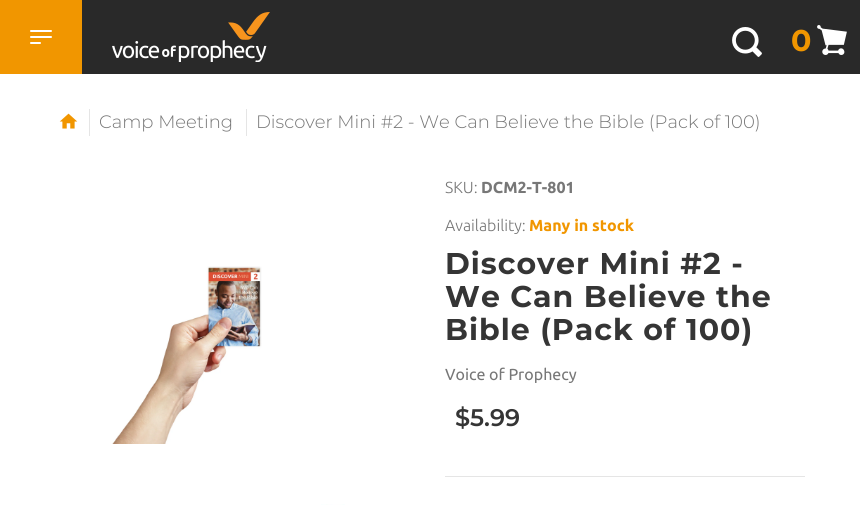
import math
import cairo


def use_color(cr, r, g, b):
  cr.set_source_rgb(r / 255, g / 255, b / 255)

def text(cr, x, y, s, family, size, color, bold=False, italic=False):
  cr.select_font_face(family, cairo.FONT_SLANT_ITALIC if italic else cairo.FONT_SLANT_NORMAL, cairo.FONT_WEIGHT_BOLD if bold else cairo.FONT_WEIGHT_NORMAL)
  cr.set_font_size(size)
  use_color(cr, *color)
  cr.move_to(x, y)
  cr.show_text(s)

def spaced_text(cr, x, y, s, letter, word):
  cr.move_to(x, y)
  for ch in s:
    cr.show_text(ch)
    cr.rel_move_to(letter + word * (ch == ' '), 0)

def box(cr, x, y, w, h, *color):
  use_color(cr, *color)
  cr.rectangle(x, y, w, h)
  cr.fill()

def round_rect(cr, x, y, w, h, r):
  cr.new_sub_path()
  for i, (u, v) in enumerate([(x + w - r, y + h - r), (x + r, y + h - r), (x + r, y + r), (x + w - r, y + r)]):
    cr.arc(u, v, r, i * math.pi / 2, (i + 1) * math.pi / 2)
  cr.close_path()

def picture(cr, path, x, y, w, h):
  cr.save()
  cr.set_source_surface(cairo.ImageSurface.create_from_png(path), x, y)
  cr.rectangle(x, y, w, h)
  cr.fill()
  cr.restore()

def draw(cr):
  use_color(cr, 255, 255, 255)
  cr.paint()
  box(cr, 82, 0, 778, 74, 41, 41, 41)
  box(cr, 0, 0, 82, 74, 241, 150, 0)
  use_color(cr, 255, 255, 255)
  round_rect(cr, 30, 30, 22, 2, 1)
  cr.fill()
  round_rect(cr, 30, 36, 22, 2, 1)
  cr.fill()
  round_rect(cr, 30, 42, 11, 2, 1)
  cr.fill()
  picture(cr, "img_01.png", 112, 12, 158, 50)
  picture(cr, "img_02.png", 732, 27, 30, 30)
  picture(cr, "img_03.png", 817, 25, 30, 30)
  picture(cr, "img_04.png", 59, 113, 19, 16)
  box(cr, 89, 109, 1, 27, 229, 229, 229)
  box(cr, 246, 109, 1, 27, 229, 229, 229)
  picture(cr, "img_05.png", 112, 266, 150, 178)
  picture(cr, "img_06.png", 321, 504, 24, 1)
  box(cr, 445, 476, 360, 1, 229, 229, 229)
  text(cr, 791, 51, "0", "Montserrat", 30, (241, 150, 0), bold=True)
  text(cr, 99, 128, "Camp Meeting", "Montserrat Light", 18, (119, 119, 119))
  text(cr, 256, 128, "Discover Mini #2 - We Can Believe the Bible (Pack of 100)", "Montserrat Light", 18, (119, 119, 119))
  text(cr, 445, 193, "SKU:", "Ubuntu Light", 16, (119, 119, 119))
  text(cr, 481, 193, "DCM2-T-801", "Ubuntu", 16, (119, 119, 119), bold=True)
  text(cr, 445, 231, "Availability:", "Ubuntu Light", 16, (119, 119, 119))
  text(cr, 529, 231, "Many in stock", "Ubuntu", 16, (241, 150, 0), bold=True)
  cr.select_font_face("Montserrat", cairo.FONT_SLANT_NORMAL, cairo.FONT_WEIGHT_BOLD)
  cr.set_font_size(30)
  use_color(cr, 53, 53, 53)
  spaced_text(cr, 445, 274, "Discover Mini #2 -", 1, 0)
  spaced_text(cr, 445, 307, "We Can Believe the", 1, 0)
  spaced_text(cr, 445, 340, "Bible (Pack of 100)", 1, 0)
  text(cr, 445, 380, "Voice of Prophecy", "Ubuntu", 16, (119, 119, 119))
  text(cr, 455, 426, "$5.99", "Montserrat SemiBold", 24, (53, 53, 53))


surface = cairo.ImageSurface(cairo.FORMAT_RGB24, 860, 505)
cr = cairo.Context(surface)
options = cairo.FontOptions()
options.set_hint_metrics(cairo.HINT_METRICS_OFF)
options.set_hint_style(cairo.HINT_STYLE_NONE)
cr.set_font_options(options)
cr.set_miter_limit(4)
draw(cr)
surface.write_to_png("out.png")
